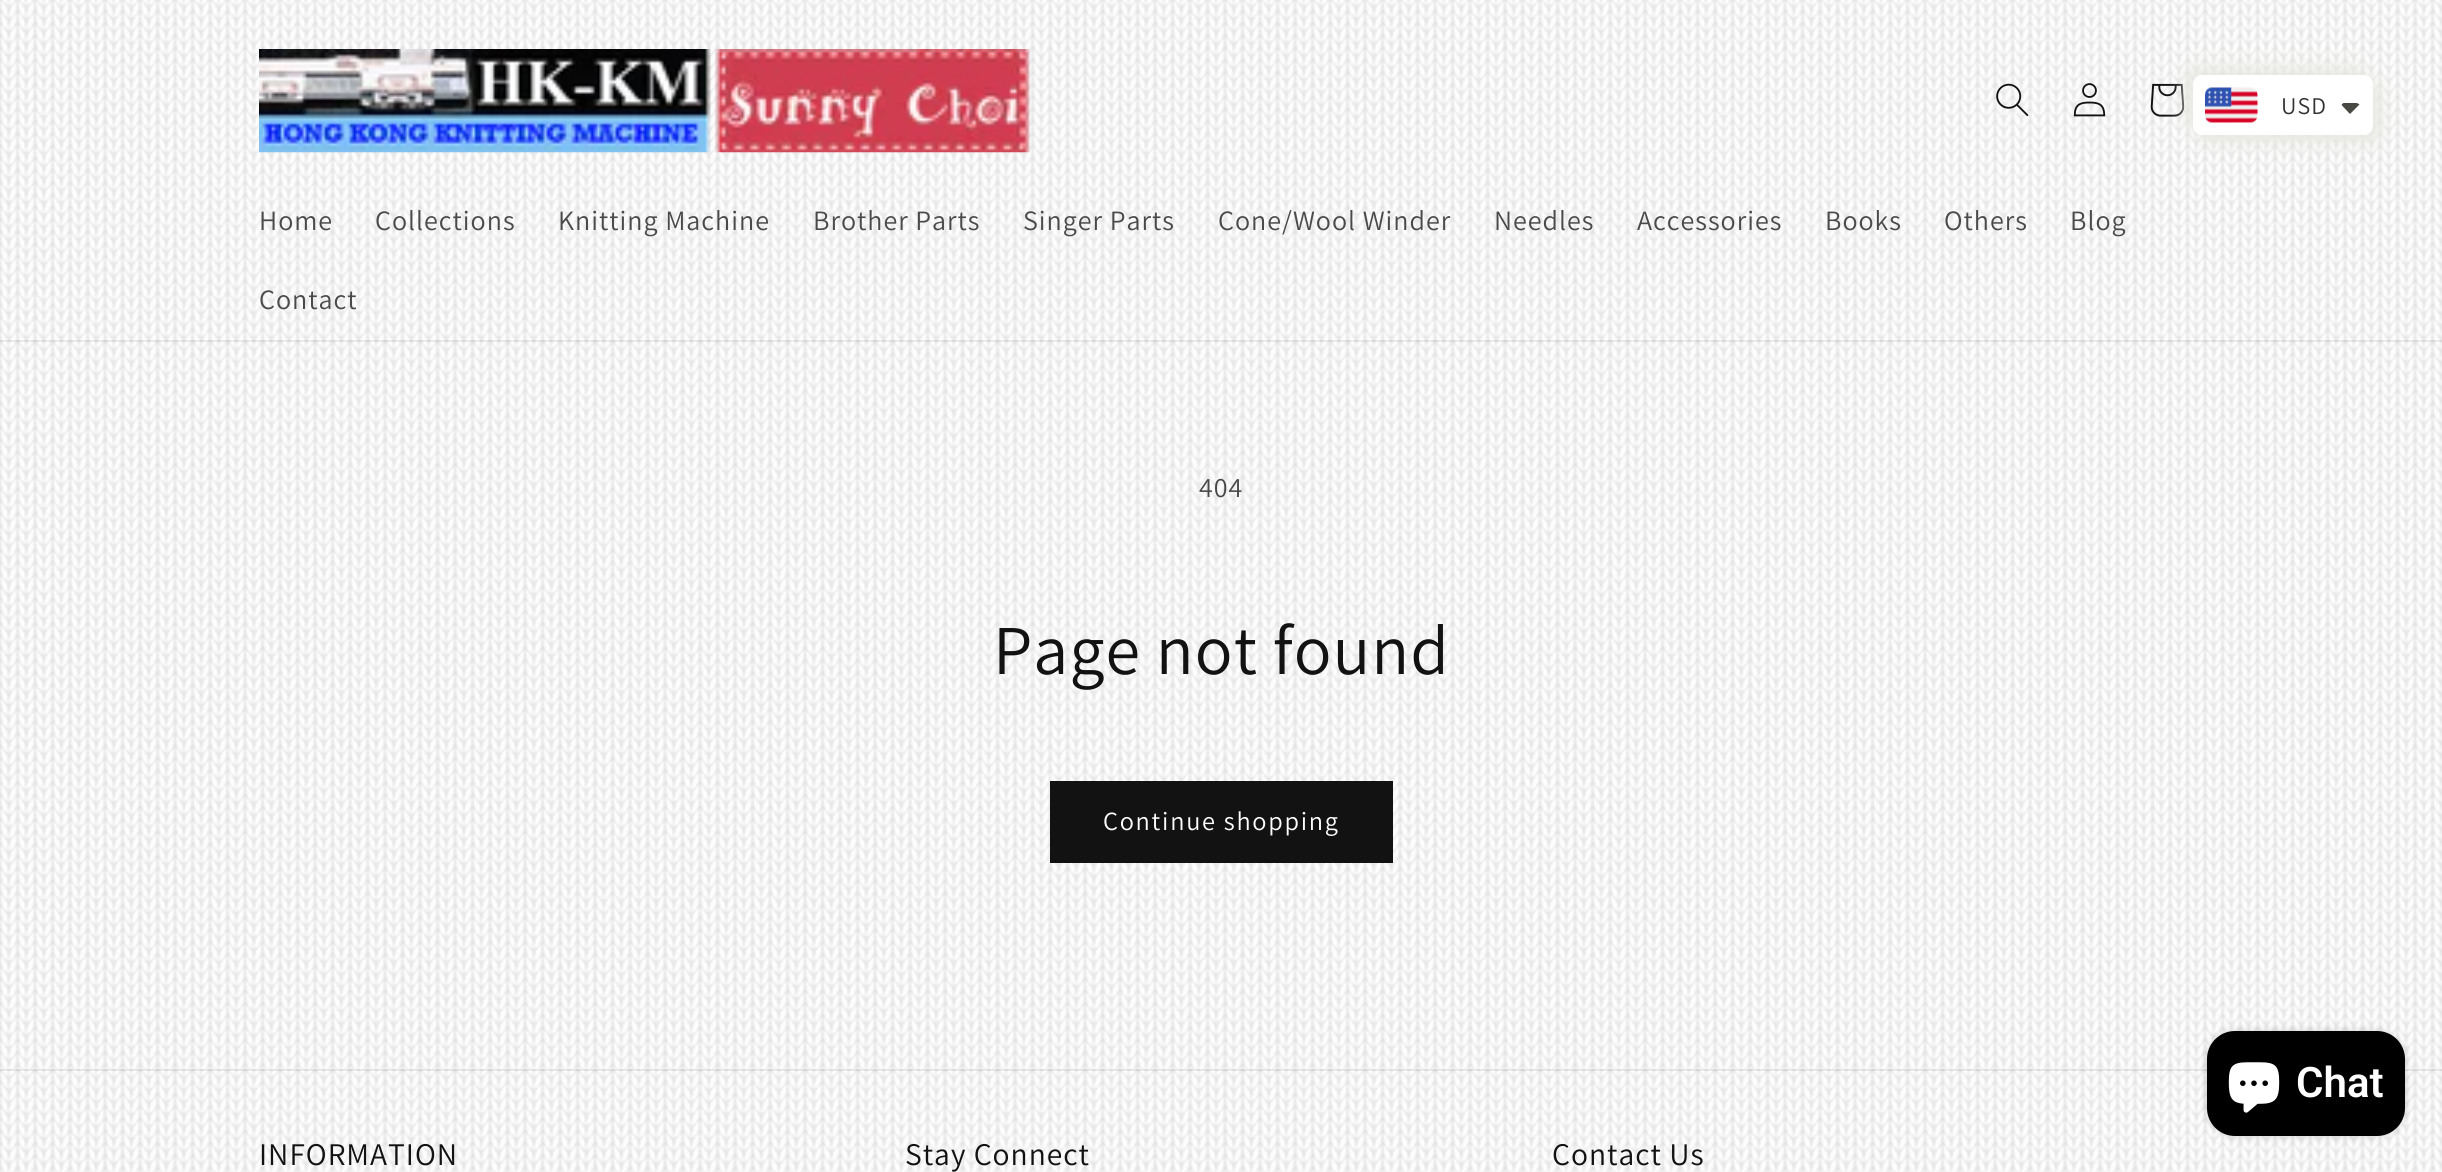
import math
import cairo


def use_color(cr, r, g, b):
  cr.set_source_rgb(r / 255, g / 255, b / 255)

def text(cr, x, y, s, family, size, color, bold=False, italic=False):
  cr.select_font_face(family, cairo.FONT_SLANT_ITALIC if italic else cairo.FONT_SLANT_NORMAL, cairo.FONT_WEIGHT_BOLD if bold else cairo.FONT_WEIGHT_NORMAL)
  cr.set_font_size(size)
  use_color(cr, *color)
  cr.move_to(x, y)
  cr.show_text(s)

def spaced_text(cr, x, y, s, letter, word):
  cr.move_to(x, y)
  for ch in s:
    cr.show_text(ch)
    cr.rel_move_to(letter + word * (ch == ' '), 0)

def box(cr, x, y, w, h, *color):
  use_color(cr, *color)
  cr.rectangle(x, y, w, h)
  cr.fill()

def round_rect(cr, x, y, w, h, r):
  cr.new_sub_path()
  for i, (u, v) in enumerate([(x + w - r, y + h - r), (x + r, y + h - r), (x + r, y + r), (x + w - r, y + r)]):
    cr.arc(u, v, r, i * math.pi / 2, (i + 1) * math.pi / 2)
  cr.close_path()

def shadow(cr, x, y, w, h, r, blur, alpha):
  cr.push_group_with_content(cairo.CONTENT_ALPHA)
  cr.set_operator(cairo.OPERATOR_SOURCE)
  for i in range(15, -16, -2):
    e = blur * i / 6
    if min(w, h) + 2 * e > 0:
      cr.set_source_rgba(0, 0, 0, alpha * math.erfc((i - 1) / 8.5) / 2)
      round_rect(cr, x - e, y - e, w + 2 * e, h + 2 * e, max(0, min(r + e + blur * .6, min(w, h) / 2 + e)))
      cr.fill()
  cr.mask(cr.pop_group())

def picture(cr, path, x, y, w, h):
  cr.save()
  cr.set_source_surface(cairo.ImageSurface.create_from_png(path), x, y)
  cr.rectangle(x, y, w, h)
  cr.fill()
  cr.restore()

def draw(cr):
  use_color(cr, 255, 255, 255)
  cr.paint()
  picture(cr, "img_01.png", 0, 0, 2442, 1070)
  picture(cr, "img_06.png", 2150, 83, 35, 34)
  use_color(cr, 232, 232, 226)
  shadow(cr, 2186, 68, 180, 60, 9, 8, 1)
  shadow(cr, 2200, 82, 180, 60, 9, 8, 1)
  use_color(cr, 255, 255, 255)
  round_rect(cr, 2193, 75, 180, 60, 9)
  cr.fill()
  picture(cr, "img_02.png", 2205, 87, 53, 36)
  use_color(cr, 71, 73, 66)
  cr.new_path()
  cr.move_to(2341.5, 105)
  cr.curve_to(2342, 104, 2342.5, 103.5, 2343.5, 103)
  cr.line_to(2357, 103)
  cr.curve_to(2358, 103.5, 2358.5, 104, 2359.5, 104.5)
  cr.line_to(2350, 114)
  cr.close_path()
  cr.fill()
  cr.set_source_rgba(0.071, 0.071, 0.071, 0.08)
  cr.rectangle(0, 340, 2442, 2)
  cr.fill()
  picture(cr, "img_03.png", 259, 49, 771, 104)
  picture(cr, "img_04.png", 1996, 83, 33, 34)
  picture(cr, "img_05.png", 2073, 83, 33, 34)
  box(cr, 1050, 781, 343, 82, 18, 18, 18)
  picture(cr, "img_08.png", 0, 1069, 2442, 103)
  cr.set_source_rgba(0.071, 0.071, 0.071, 0.08)
  cr.rectangle(0, 1069, 2442, 2)
  cr.fill()
  use_color(cr, 0, 0, 0)
  shadow(cr, 2207, 1031, 198, 105, 28, 4.5, 0.15)
  use_color(cr, 0, 0, 0)
  round_rect(cr, 2207, 1031, 198, 105, 28)
  cr.fill()
  picture(cr, "img_07.png", 2228, 1062, 52, 51)
  cr.select_font_face("Assistant")
  cr.set_font_size(24)
  use_color(cr, 51, 51, 51)
  spaced_text(cr, 2281, 114, "USD", 1, 0)
  cr.set_font_size(28)
  use_color(cr, 74, 74, 74)
  spaced_text(cr, 259, 230, "Home", 1, 0)
  spaced_text(cr, 375, 230, "Collections", 1, 0)
  spaced_text(cr, 558, 230, "Knitting Machine", 1, 0)
  spaced_text(cr, 813, 230, "Brother Parts", 1, 0)
  spaced_text(cr, 1023, 230, "Singer Parts", 1, 0)
  spaced_text(cr, 1218, 230, "Cone/Wool Winder", 1, 0)
  spaced_text(cr, 1494, 230, "Needles", 1, 0)
  spaced_text(cr, 1637, 230, "Accessories", 1, 0)
  spaced_text(cr, 1825, 230, "Books", 1, 0)
  spaced_text(cr, 1944, 230, "Others", 1, 0)
  spaced_text(cr, 2070, 230, "Blog", 1, 0)
  spaced_text(cr, 259, 309, "Contact", 1, 0)
  spaced_text(cr, 1199, 497, "404", 1, 0)
  cr.set_font_size(70)
  use_color(cr, 18, 18, 18)
  spaced_text(cr, 993, 674, "Page not found", 1, 0)
  cr.set_font_size(26.25)
  use_color(cr, 255, 255, 255)
  spaced_text(cr, 1103, 830, "Continue shopping", 1.75, 0)
  text(cr, 2296, 1097, "Chat", "Roboto SemiBold", 42, (255, 255, 255))
  cr.select_font_face("Assistant")
  cr.set_font_size(31.5)
  use_color(cr, 18, 18, 18)
  spaced_text(cr, 259, 1165, "INFORMATION", 1, 0)
  spaced_text(cr, 905, 1165, "Stay Connect", 1, 0)
  spaced_text(cr, 1552, 1165, "Contact Us", 1, 0)


surface = cairo.ImageSurface(cairo.FORMAT_RGB24, 2442, 1172)
cr = cairo.Context(surface)
options = cairo.FontOptions()
options.set_hint_metrics(cairo.HINT_METRICS_OFF)
options.set_hint_style(cairo.HINT_STYLE_NONE)
cr.set_font_options(options)
cr.set_miter_limit(4)
draw(cr)
surface.write_to_png("out.png")
